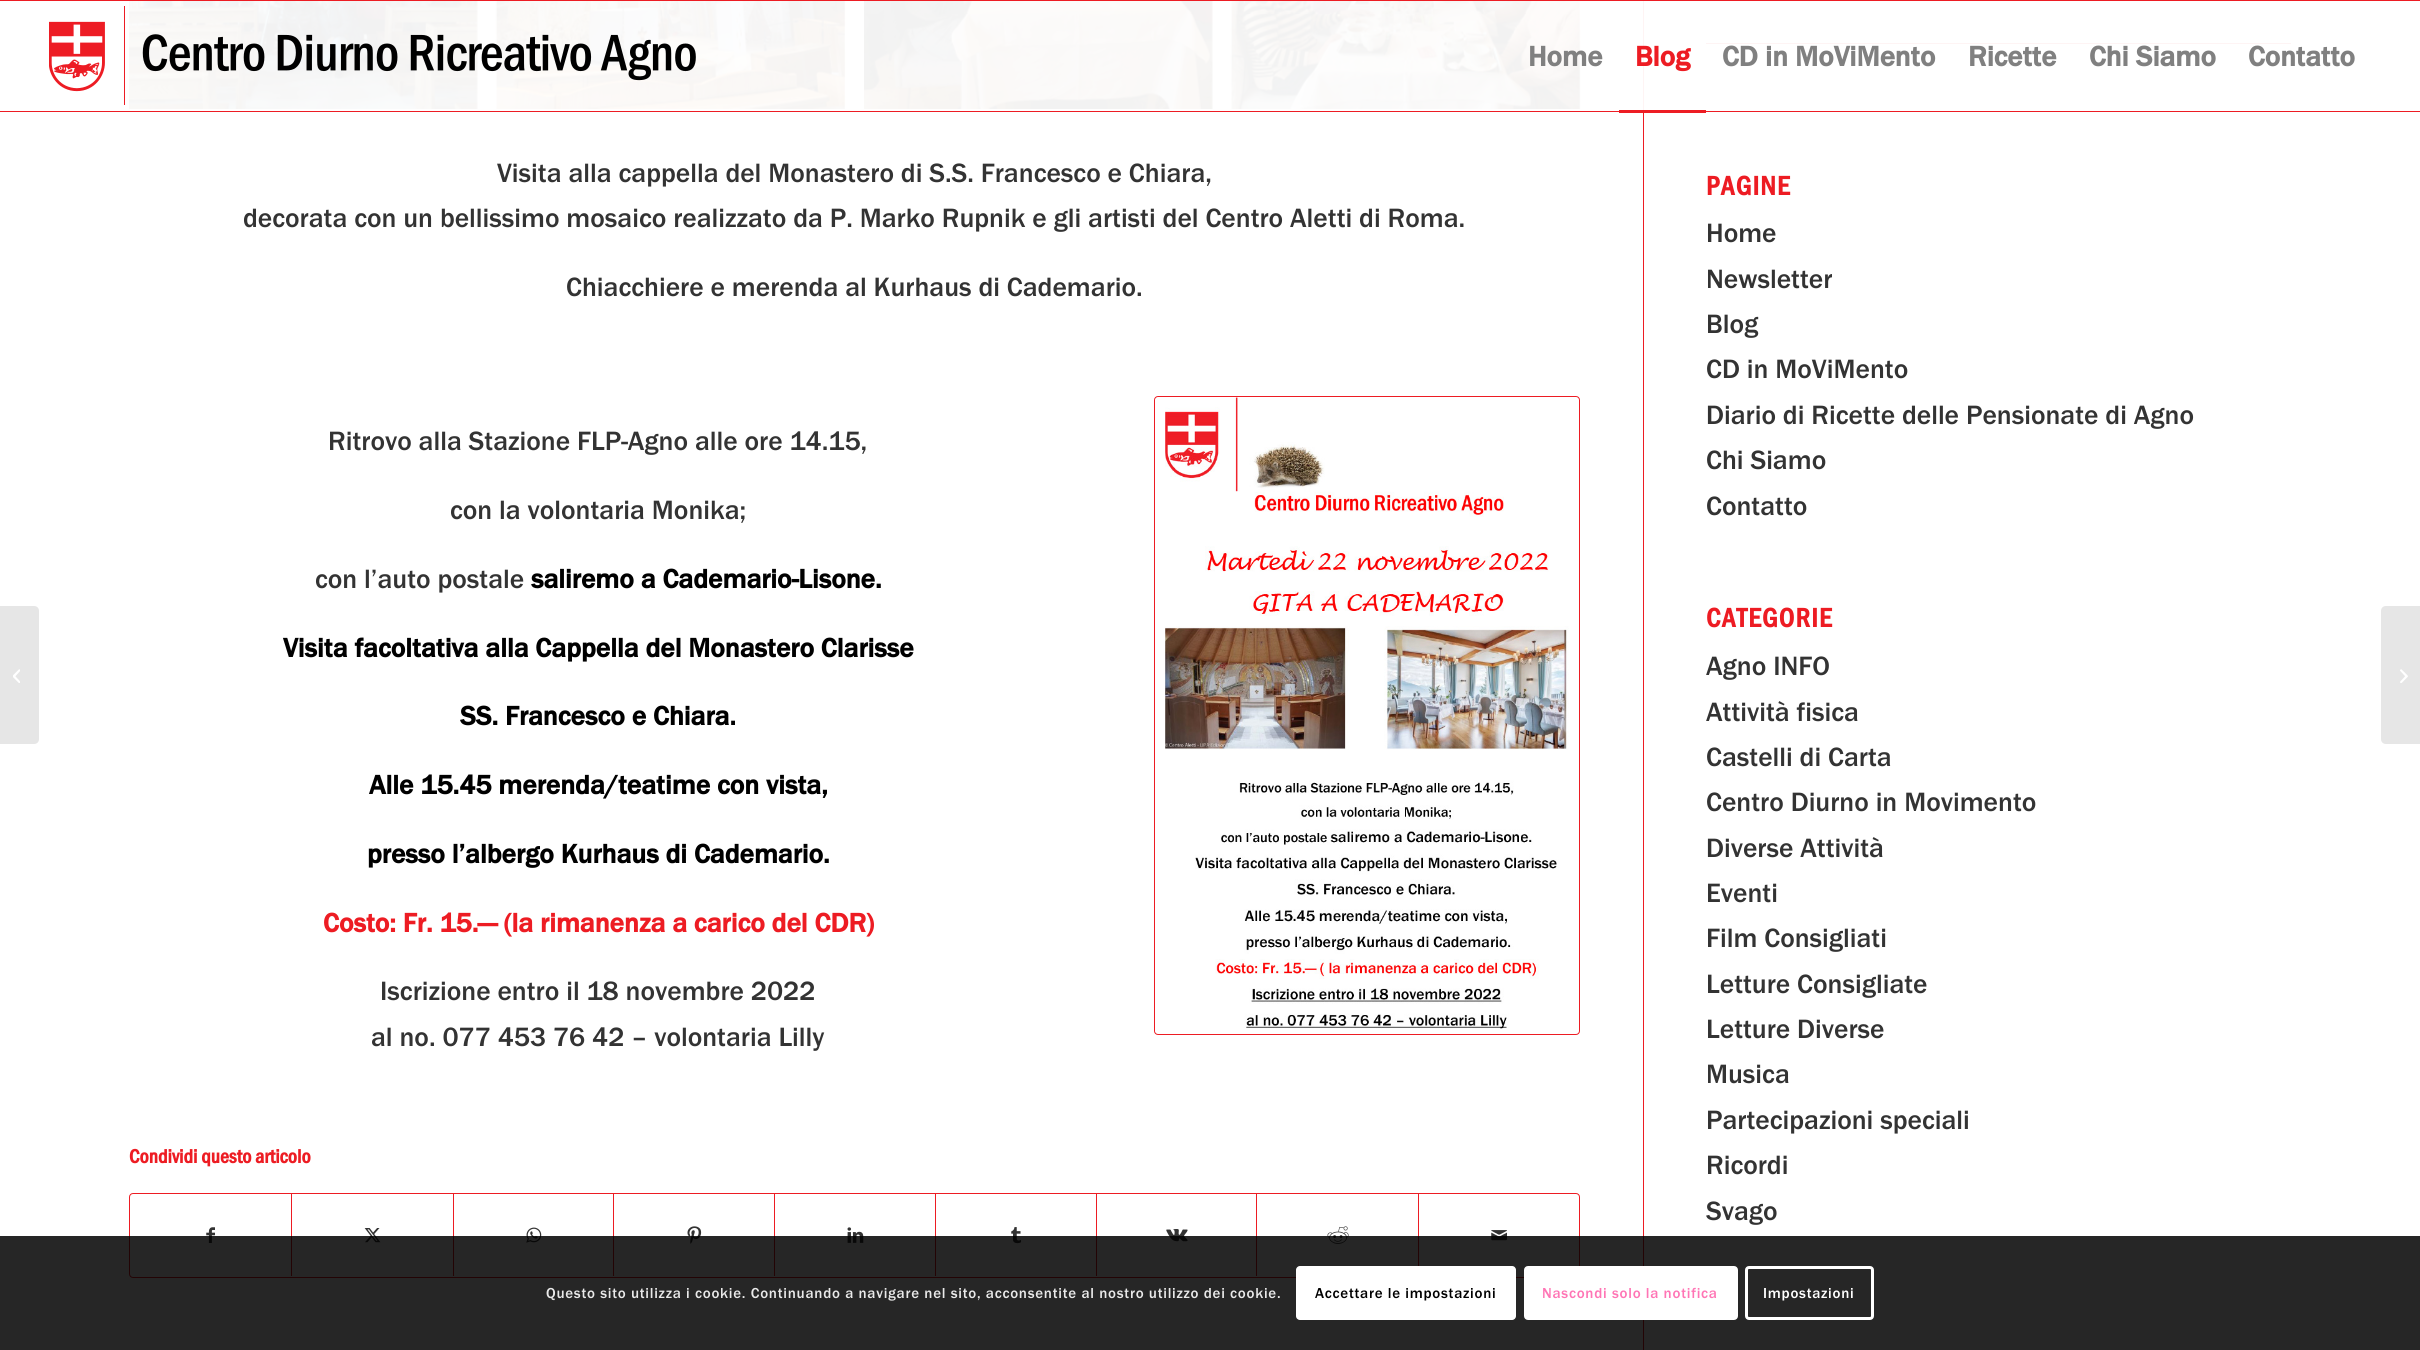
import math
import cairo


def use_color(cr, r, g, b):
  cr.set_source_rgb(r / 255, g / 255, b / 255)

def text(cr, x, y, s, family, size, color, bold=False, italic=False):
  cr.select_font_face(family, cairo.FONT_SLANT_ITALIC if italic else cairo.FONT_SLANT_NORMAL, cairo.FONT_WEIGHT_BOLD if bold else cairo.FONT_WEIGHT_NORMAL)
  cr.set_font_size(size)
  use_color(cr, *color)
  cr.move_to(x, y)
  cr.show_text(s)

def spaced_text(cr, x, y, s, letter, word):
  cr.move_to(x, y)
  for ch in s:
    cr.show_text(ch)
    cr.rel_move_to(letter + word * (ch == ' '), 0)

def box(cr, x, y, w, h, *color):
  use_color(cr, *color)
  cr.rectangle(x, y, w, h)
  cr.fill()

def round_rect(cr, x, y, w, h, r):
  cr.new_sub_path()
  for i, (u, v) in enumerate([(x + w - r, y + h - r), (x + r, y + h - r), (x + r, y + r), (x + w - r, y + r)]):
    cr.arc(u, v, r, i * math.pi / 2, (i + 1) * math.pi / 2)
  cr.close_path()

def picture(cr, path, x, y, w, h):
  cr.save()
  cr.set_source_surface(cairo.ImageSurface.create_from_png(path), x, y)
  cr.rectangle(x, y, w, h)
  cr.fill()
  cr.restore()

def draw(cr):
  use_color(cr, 255, 255, 255)
  cr.paint()
  box(cr, 1643, 0, 1, 113, 254, 244, 244)
  box(cr, 0, 0, 2420, 1, 237, 28, 35)
  box(cr, 0, 111, 2420, 1, 237, 28, 35)
  picture(cr, "img_03.png", 129, 1, 349, 108)
  picture(cr, "img_04.png", 495, 1, 351, 108)
  picture(cr, "img_01.png", 49, 6, 647, 99)
  box(cr, 1619, 110, 87, 3, 237, 28, 35)
  use_color(cr, 230, 230, 230)
  cr.new_path()
  cr.move_to(0, 606)
  cr.line_to(34, 606)
  cr.curve_to(37, 606, 39, 608, 39, 611)
  cr.line_to(39, 739)
  cr.curve_to(39, 742, 37, 744, 34, 744)
  cr.line_to(0, 744)
  cr.close_path()
  cr.fill()
  picture(cr, "img_02.png", 13, 669, 7, 14)
  box(cr, 1643, 113, 1, 1237, 237, 28, 35)
  picture(cr, "img_05.png", 864, 1, 349, 108)
  picture(cr, "img_06.png", 1230, 1, 351, 108)
  round_rect(cr, 1154.5, 396.5, 425, 638, 3.5)
  cr.set_line_width(1)
  cr.stroke()
  picture(cr, "img_07.png", 1155, 397, 424, 635)
  round_rect(cr, 129.5, 1193.5, 1450, 84, 3.5)
  cr.stroke()
  picture(cr, "img_08.png", 206, 1227, 9, 16)
  box(cr, 291, 1194, 1, 82, 237, 28, 35)
  picture(cr, "img_09.png", 364, 1228, 17, 15)
  box(cr, 453, 1194, 1, 82, 237, 28, 35)
  picture(cr, "img_10.png", 526, 1227, 16, 16)
  box(cr, 613, 1194, 1, 82, 237, 28, 35)
  picture(cr, "img_11.png", 687, 1226, 15, 18)
  box(cr, 774, 1194, 1, 82, 237, 28, 35)
  picture(cr, "img_12.png", 847, 1227, 17, 16)
  box(cr, 935, 1194, 1, 82, 237, 28, 35)
  picture(cr, "img_13.png", 1011, 1227, 11, 17)
  box(cr, 1096, 1194, 1, 82, 237, 28, 35)
  picture(cr, "img_14.png", 1166, 1229, 22, 13)
  box(cr, 1256, 1194, 1, 82, 237, 28, 35)
  picture(cr, "img_15.png", 1327, 1226, 22, 18)
  box(cr, 1418, 1194, 1, 72, 237, 28, 35)
  picture(cr, "img_16.png", 1491, 1230, 16, 11)
  box(cr, 1706, 43, 585, 1, 254, 244, 244)
  use_color(cr, 230, 230, 230)
  cr.new_path()
  cr.move_to(2386, 606)
  cr.line_to(2420, 606)
  cr.line_to(2420, 744)
  cr.line_to(2386, 744)
  cr.curve_to(2383, 744, 2381, 742, 2381, 739)
  cr.line_to(2381, 611)
  cr.curve_to(2381, 608, 2383, 606, 2386, 606)
  cr.close_path()
  cr.fill()
  picture(cr, "img_17.png", 2400, 669, 8, 14)
  cr.set_source_rgba(0, 0, 0, 0.85)
  cr.rectangle(0, 1236, 2420, 114)
  cr.fill()
  use_color(cr, 255, 255, 255)
  round_rect(cr, 1296, 1266, 220, 54, 4)
  cr.fill()
  round_rect(cr, 1525.5, 1267.5, 211, 51, 2.5)
  cr.fill_preserve()
  cr.set_line_width(3)
  cr.stroke()
  round_rect(cr, 1746.5, 1267.5, 126, 51, 2.5)
  cr.stroke()
  text(cr, 1528, 66, "Home", "Franklin Gothic", 29, (128, 128, 128), bold=True)
  text(cr, 1635, 66, "Blog", "Franklin Gothic", 29, (237, 28, 35), bold=True)
  text(cr, 1722, 66, "CD in MoViMento", "Franklin Gothic", 29, (128, 128, 128), bold=True)
  text(cr, 1968, 66, "Ricette", "Franklin Gothic", 29, (128, 128, 128), bold=True)
  text(cr, 2089, 66, "Chi Siamo", "Franklin Gothic", 29, (128, 128, 128), bold=True)
  text(cr, 2248, 66, "Contatto", "Franklin Gothic", 29, (128, 128, 128), bold=True)
  text(cr, 497, 182, "Visita alla cappella del Monastero di S.S. Francesco e Chiara,", "Franklin Gothic Medium", 27.5, (51, 51, 51))
  text(cr, 243, 227, "decorata con un bellissimo mosaico realizzato da P. Marko Rupnik e gli artisti del Centro Aletti di Roma.", "Franklin Gothic Medium", 27.5, (51, 51, 51))
  text(cr, 566, 296, "Chiacchiere e merenda al Kurhaus di Cademario.", "Franklin Gothic Medium", 27.5, (51, 51, 51))
  text(cr, 328, 450, "Ritrovo alla Stazione FLP-Agno alle ore 14.15,", "Franklin Gothic Medium", 27.5, (51, 51, 51))
  text(cr, 450, 519, "con la volontaria Monika;", "Franklin Gothic Medium", 27.5, (51, 51, 51))
  text(cr, 315, 588, "con l’auto postale", "Franklin Gothic Medium", 27.5, (51, 51, 51))
  text(cr, 531, 588, "saliremo a Cademario-Lisone.", "Franklin Gothic", 27.5, (0, 0, 0), bold=True)
  text(cr, 283, 657, "Visita facoltativa alla Cappella del Monastero Clarisse", "Franklin Gothic", 27.5, (0, 0, 0), bold=True)
  text(cr, 460, 725, "SS. Francesco e Chiara.", "Franklin Gothic", 27.5, (0, 0, 0), bold=True)
  text(cr, 369, 794, "Alle 15.45 merenda/teatime con vista,", "Franklin Gothic", 27.5, (0, 0, 0), bold=True)
  text(cr, 367, 863, "presso l’albergo Kurhaus di Cademario.", "Franklin Gothic", 27.5, (0, 0, 0), bold=True)
  text(cr, 323, 932, "Costo: Fr. 15.— (la rimanenza a carico del CDR)", "Franklin Gothic", 27.5, (237, 28, 35), bold=True)
  text(cr, 380, 1000, "Iscrizione entro il 18 novembre 2022", "Franklin Gothic Medium", 27.5, (51, 51, 51))
  text(cr, 371, 1046, "al no. 077 453 76 42 – volontaria Lilly", "Franklin Gothic Medium", 27.5, (51, 51, 51))
  text(cr, 129, 1163, "Condividi questo articolo", "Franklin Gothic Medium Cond", 20, (237, 28, 35), bold=True)
  cr.set_font_size(27.5)
  spaced_text(cr, 1706, 195, "PAGINE", 1.25, 0)
  text(cr, 1706, 242, "Home", "Franklin Gothic Medium", 27.5, (51, 51, 51))
  text(cr, 1706, 288, "Newsletter", "Franklin Gothic Medium", 27.5, (51, 51, 51))
  text(cr, 1706, 333, "Blog", "Franklin Gothic Medium", 27.5, (51, 51, 51))
  text(cr, 1706, 378, "CD in MoViMento", "Franklin Gothic Medium", 27.5, (51, 51, 51))
  text(cr, 1706, 424, "Diario di Ricette delle Pensionate di Agno", "Franklin Gothic Medium", 27.5, (51, 51, 51))
  text(cr, 1706, 469, "Chi Siamo", "Franklin Gothic Medium", 27.5, (51, 51, 51))
  text(cr, 1706, 515, "Contatto", "Franklin Gothic Medium", 27.5, (51, 51, 51))
  cr.select_font_face("Franklin Gothic Medium Cond", cairo.FONT_SLANT_NORMAL, cairo.FONT_WEIGHT_BOLD)
  use_color(cr, 237, 28, 35)
  spaced_text(cr, 1706, 627, "CATEGORIE", 1.25, 0)
  text(cr, 1706, 675, "Agno INFO", "Franklin Gothic Medium", 27.5, (51, 51, 51))
  text(cr, 1706, 721, "Attività fisica", "Franklin Gothic Medium", 27.5, (51, 51, 51))
  text(cr, 1706, 766, "Castelli di Carta", "Franklin Gothic Medium", 27.5, (51, 51, 51))
  text(cr, 1706, 811, "Centro Diurno in Movimento", "Franklin Gothic Medium", 27.5, (51, 51, 51))
  text(cr, 1706, 857, "Diverse Attività", "Franklin Gothic Medium", 27.5, (51, 51, 51))
  text(cr, 1706, 902, "Eventi", "Franklin Gothic Medium", 27.5, (51, 51, 51))
  text(cr, 1706, 947, "Film Consigliati", "Franklin Gothic Medium", 27.5, (51, 51, 51))
  text(cr, 1706, 993, "Letture Consigliate", "Franklin Gothic Medium", 27.5, (51, 51, 51))
  text(cr, 1706, 1038, "Letture Diverse", "Franklin Gothic Medium", 27.5, (51, 51, 51))
  text(cr, 1706, 1083, "Musica", "Franklin Gothic Medium", 27.5, (51, 51, 51))
  text(cr, 1706, 1129, "Partecipazioni speciali", "Franklin Gothic Medium", 27.5, (51, 51, 51))
  text(cr, 1706, 1174, "Ricordi", "Franklin Gothic Medium", 27.5, (51, 51, 51))
  text(cr, 1706, 1220, "Svago", "Franklin Gothic Medium", 27.5, (51, 51, 51))
  cr.set_font_size(15)
  use_color(cr, 233, 233, 233)
  spaced_text(cr, 546, 1298, "Questo sito utilizza i cookie. Continuando a navigare nel sito, acconsentite al nostro utilizzo dei cookie.", 0.75, 0)
  use_color(cr, 0, 0, 0)
  spaced_text(cr, 1315, 1298, "Accettare le impostazioni", 0.75, 0)
  use_color(cr, 255, 117, 181)
  spaced_text(cr, 1542, 1298, "Nascondi solo la notifica", 0.75, 0)
  use_color(cr, 255, 255, 255)
  spaced_text(cr, 1763, 1298, "Impostazioni", 0.75, 0)


surface = cairo.ImageSurface(cairo.FORMAT_RGB24, 2420, 1350)
cr = cairo.Context(surface)
options = cairo.FontOptions()
options.set_hint_metrics(cairo.HINT_METRICS_OFF)
options.set_hint_style(cairo.HINT_STYLE_NONE)
cr.set_font_options(options)
cr.set_miter_limit(4)
draw(cr)
surface.write_to_png("out.png")
